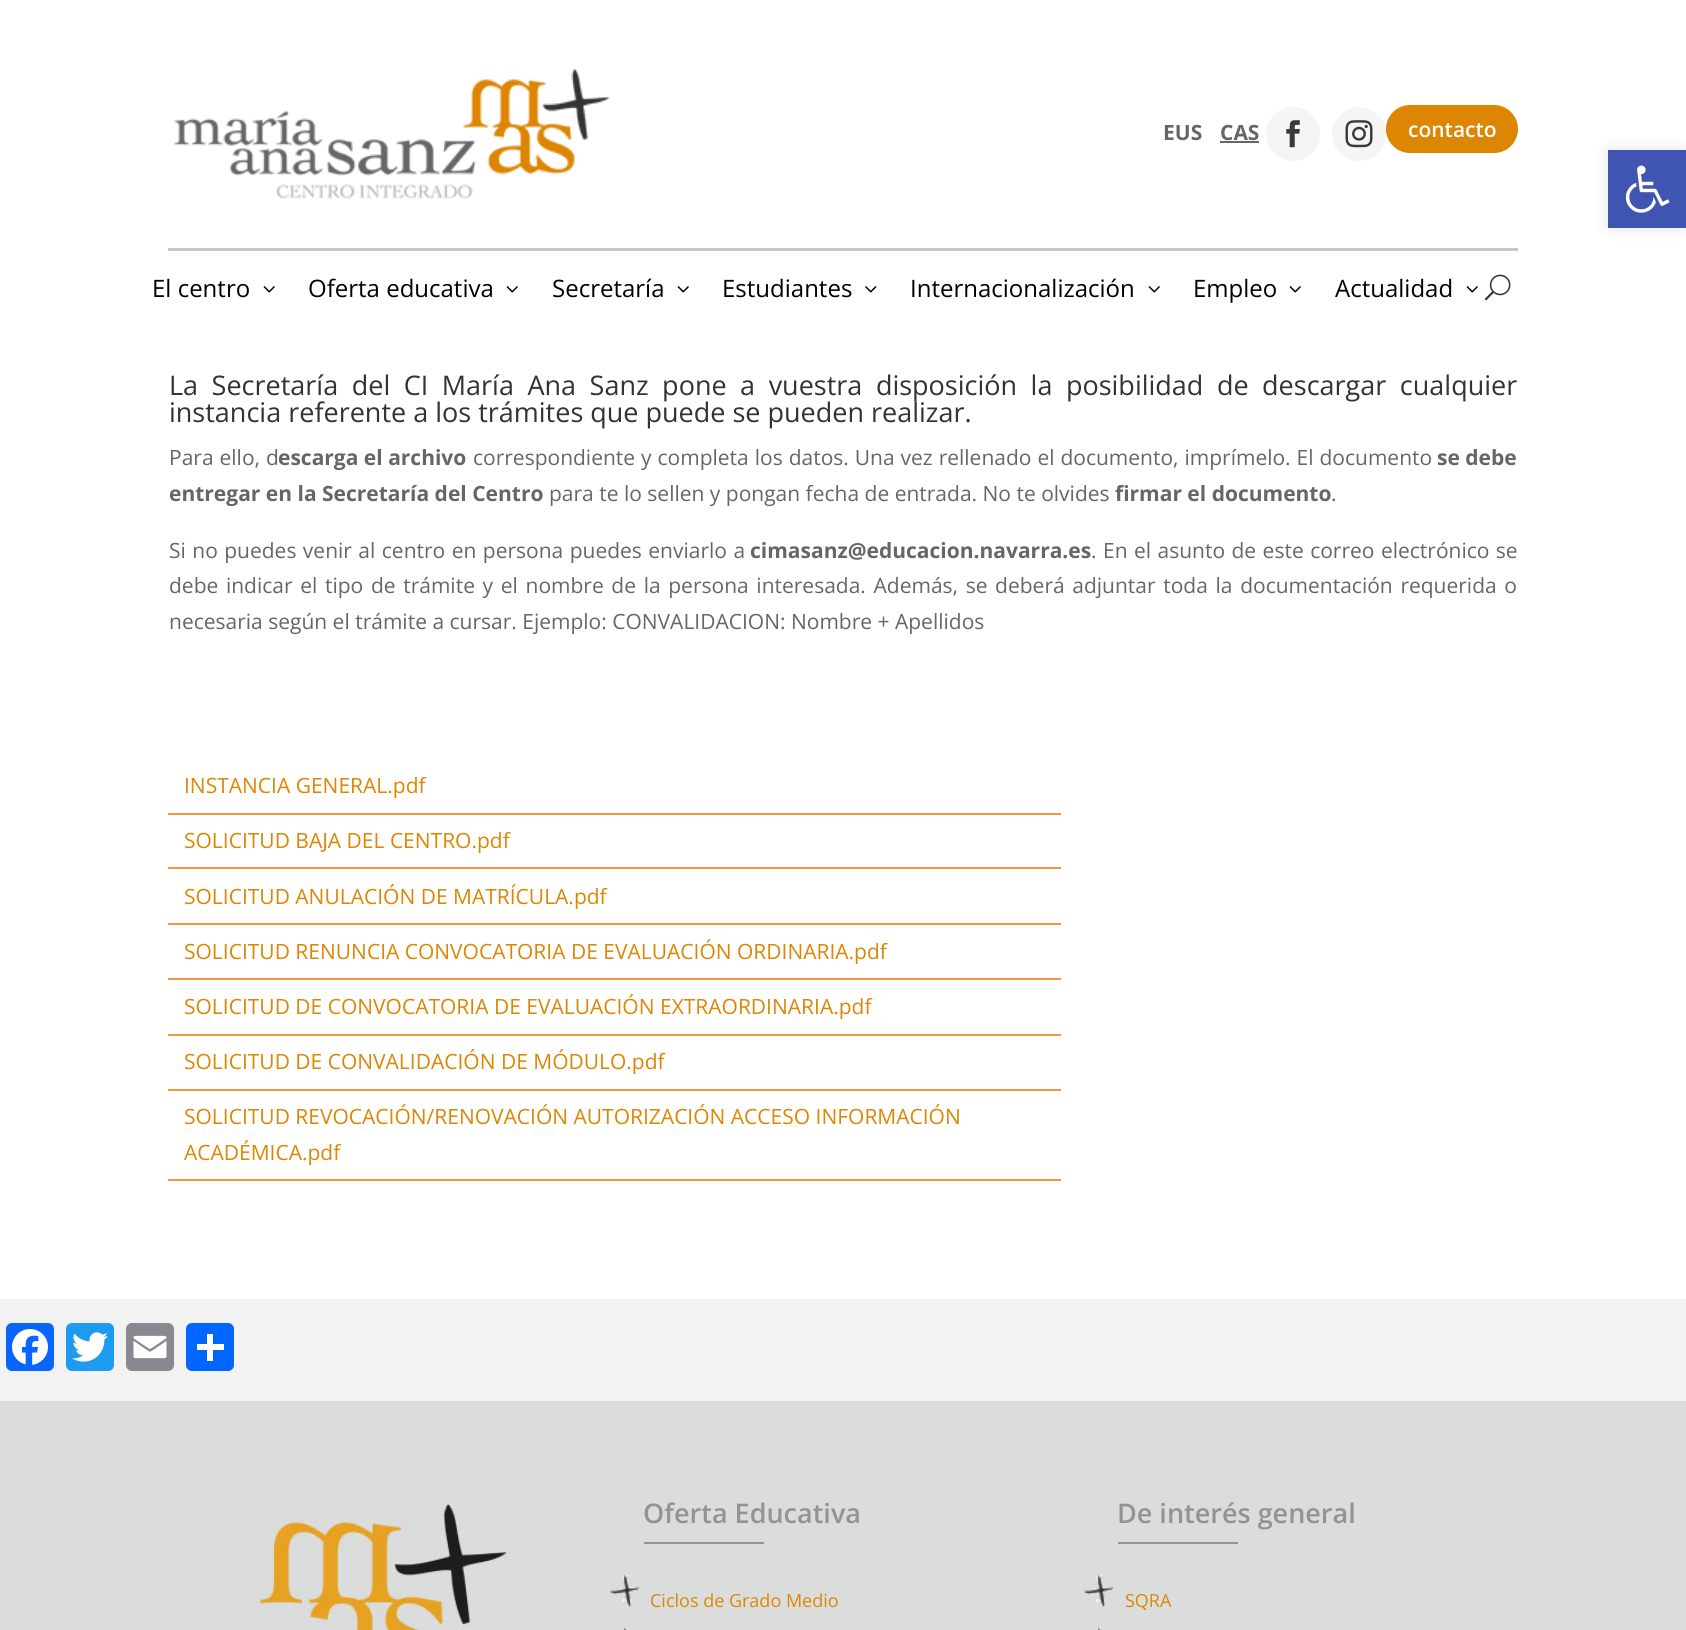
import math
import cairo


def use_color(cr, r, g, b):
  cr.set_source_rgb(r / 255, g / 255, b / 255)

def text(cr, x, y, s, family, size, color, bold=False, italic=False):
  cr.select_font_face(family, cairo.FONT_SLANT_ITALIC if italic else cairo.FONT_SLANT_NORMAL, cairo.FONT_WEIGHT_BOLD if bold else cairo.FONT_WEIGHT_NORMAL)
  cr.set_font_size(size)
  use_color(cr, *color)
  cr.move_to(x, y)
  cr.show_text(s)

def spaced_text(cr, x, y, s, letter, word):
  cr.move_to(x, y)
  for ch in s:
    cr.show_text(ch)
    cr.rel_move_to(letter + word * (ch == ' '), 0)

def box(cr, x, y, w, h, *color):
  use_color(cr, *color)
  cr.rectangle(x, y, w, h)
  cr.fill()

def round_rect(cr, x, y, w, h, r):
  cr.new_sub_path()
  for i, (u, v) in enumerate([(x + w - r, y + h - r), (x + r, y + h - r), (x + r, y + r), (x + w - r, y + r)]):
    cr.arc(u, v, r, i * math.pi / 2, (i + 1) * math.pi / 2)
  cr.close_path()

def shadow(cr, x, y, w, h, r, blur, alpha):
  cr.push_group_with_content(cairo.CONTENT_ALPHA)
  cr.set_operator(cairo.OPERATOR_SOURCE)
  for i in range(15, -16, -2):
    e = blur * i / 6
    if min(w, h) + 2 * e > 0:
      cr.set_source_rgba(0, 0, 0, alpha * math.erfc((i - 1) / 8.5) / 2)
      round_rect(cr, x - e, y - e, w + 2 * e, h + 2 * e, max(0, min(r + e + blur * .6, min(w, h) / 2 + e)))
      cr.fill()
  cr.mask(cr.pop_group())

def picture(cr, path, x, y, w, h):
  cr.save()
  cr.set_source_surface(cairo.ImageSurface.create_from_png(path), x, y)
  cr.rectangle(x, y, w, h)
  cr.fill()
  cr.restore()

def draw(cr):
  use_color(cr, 242, 242, 242)
  cr.paint()
  box(cr, 0, 0, 1686, 1299, 255, 255, 255)
  box(cr, 168, 248, 1350, 3, 196, 199, 199)
  picture(cr, "img_01.png", 173, 68, 437, 131)
  box(cr, 1220, 141, 39, 2, 102, 102, 102)
  use_color(cr, 245, 245, 244)
  cr.arc(1293, 134, 27, 0, 2 * math.pi)
  cr.fill()
  picture(cr, "img_02.png", 1286, 120, 14, 28)
  cr.arc(1359, 134, 27, 0, 2 * math.pi)
  cr.fill()
  picture(cr, "img_03.png", 1345, 120, 28, 28)
  use_color(cr, 221, 134, 3)
  round_rect(cr, 1386, 105, 132, 48, 24)
  cr.fill()
  picture(cr, "img_04.png", 263, 286, 12, 7)
  picture(cr, "img_04.png", 506, 286, 12, 7)
  picture(cr, "img_04.png", 677, 286, 12, 7)
  picture(cr, "img_05.png", 865, 286, 12, 7)
  picture(cr, "img_04.png", 1148, 286, 12, 7)
  picture(cr, "img_04.png", 1289, 286, 12, 7)
  picture(cr, "img_04.png", 1466, 286, 12, 7)
  picture(cr, "img_06.png", 1484, 274, 27, 27)
  box(cr, 168, 813, 893, 2, 244, 151, 59)
  box(cr, 168, 867, 893, 2, 244, 151, 59)
  box(cr, 168, 923, 893, 2, 244, 151, 59)
  box(cr, 168, 978, 893, 2, 244, 151, 59)
  box(cr, 168, 1034, 893, 2, 244, 151, 59)
  box(cr, 168, 1089, 893, 2, 244, 151, 59)
  box(cr, 168, 1179, 893, 2, 244, 151, 59)
  use_color(cr, 8, 102, 255)
  round_rect(cr, 6, 1323, 48, 48, 6)
  cr.fill()
  picture(cr, "img_07.png", 12, 1329, 36, 36)
  use_color(cr, 29, 155, 240)
  round_rect(cr, 66, 1323, 48, 48, 6)
  cr.fill()
  picture(cr, "img_08.png", 72, 1332, 36, 30)
  use_color(cr, 136, 137, 144)
  round_rect(cr, 126, 1323, 48, 48, 6)
  cr.fill()
  picture(cr, "img_09.png", 133, 1335, 34, 24)
  use_color(cr, 1, 102, 255)
  round_rect(cr, 186, 1323, 48, 48, 6)
  cr.fill()
  box(cr, 207, 1334, 6, 27, 255, 255, 255)
  box(cr, 197, 1344, 27, 6, 255, 255, 255)
  box(cr, 0, 1401, 1686, 229, 219, 221, 220)
  picture(cr, "img_10.png", 255, 1501, 252, 129)
  box(cr, 644, 1542, 120, 2, 145, 148, 148)
  picture(cr, "img_11.png", 610, 1575, 31, 32)
  picture(cr, "img_12.png", 622, 1627, 6, 3)
  box(cr, 1118, 1542, 120, 2, 145, 148, 148)
  picture(cr, "img_13.png", 1084, 1575, 31, 32)
  picture(cr, "img_14.png", 1096, 1627, 6, 3)
  use_color(cr, 0, 0, 0)
  shadow(cr, 1608, 150, 78, 78, 0, 7.5, 0.1)
  box(cr, 1608, 150, 78, 78, 64, 84, 178)
  picture(cr, "img_15.png", 1625, 165, 45, 48)
  text(cr, 1163, 140, "EUS", "Open Sans", 21, (102, 102, 102), bold=True)
  text(cr, 1220, 140, "CAS", "Open Sans", 21, (102, 102, 102), bold=True)
  text(cr, 1408, 137, "contacto", "Open Sans SemiBold", 21, (255, 255, 255))
  text(cr, 152, 297, "El centro", "Open Sans", 24, (0, 0, 0))
  text(cr, 308, 297, "Oferta educativa", "Open Sans", 24, (0, 0, 0))
  text(cr, 552, 297, "Secretaría", "Open Sans", 24, (0, 0, 0))
  text(cr, 722, 297, "Estudiantes", "Open Sans", 24, (0, 0, 0))
  text(cr, 910, 297, "Internacionalización", "Open Sans", 24, (0, 0, 0))
  text(cr, 1193, 297, "Empleo", "Open Sans", 24, (0, 0, 0))
  text(cr, 1335, 297, "Actualidad", "Open Sans", 24, (0, 0, 0))
  cr.set_font_size(27)
  use_color(cr, 51, 51, 51)
  spaced_text(cr, 169, 395, "La Secretaría del CI María Ana Sanz pone a vuestra disposición la posibilidad de descargar cualquier", 0, 6.5)
  text(cr, 169, 422, "instancia referente a los trámites que puede se pueden realizar.", "Open Sans", 27, (51, 51, 51))
  cr.set_font_size(21)
  use_color(cr, 102, 102, 102)
  spaced_text(cr, 169, 465, "Para ello, d", 0, 0.5)
  text(cr, 278, 465, "escarga el archivo", "Open Sans", 21, (102, 102, 102), bold=True)
  cr.select_font_face("Open Sans")
  spaced_text(cr, 473, 465, "correspondiente y completa los datos. Una vez rellenado el documento, imprímelo. El documento", 0, 0.5)
  text(cr, 1437, 465, "se debe", "Open Sans", 21, (102, 102, 102), bold=True)
  text(cr, 169, 501, "entregar en la Secretaría del Centro", "Open Sans", 21, (102, 102, 102), bold=True)
  text(cr, 549, 501, "para te lo sellen y pongan fecha de entrada. No te olvides", "Open Sans", 21, (102, 102, 102))
  text(cr, 1115, 501, "firmar el documento", "Open Sans", 21, (102, 102, 102), bold=True)
  text(cr, 1331, 501, ".", "Open Sans", 21, (102, 102, 102))
  spaced_text(cr, 169, 558, "Si no puedes venir al centro en persona puedes enviarlo a", 0, 1)
  text(cr, 750, 558, "cimasanz@educacion.navarra.es", "Open Sans", 21, (102, 102, 102), bold=True)
  cr.select_font_face("Open Sans")
  spaced_text(cr, 1091, 558, ". En el asunto de este correo electrónico se", 0, 1)
  spaced_text(cr, 169, 593, "debe indicar el tipo de trámite y el nombre de la persona interesada. Además, se deberá adjuntar toda la documentación requerida o", 0, 2.2)
  text(cr, 169, 629, "necesaria según el trámite a cursar. Ejemplo: CONVALIDACION: Nombre + Apellidos", "Open Sans", 21, (102, 102, 102))
  text(cr, 184, 793, "INSTANCIA GENERAL.pdf", "Open Sans", 21, (221, 134, 3))
  text(cr, 184, 848, "SOLICITUD BAJA DEL CENTRO.pdf", "Open Sans", 21, (221, 134, 3))
  text(cr, 184, 904, "SOLICITUD ANULACIÓN DE MATRÍCULA.pdf", "Open Sans", 21, (221, 134, 3))
  text(cr, 184, 959, "SOLICITUD RENUNCIA CONVOCATORIA DE EVALUACIÓN ORDINARIA.pdf", "Open Sans", 21, (221, 134, 3))
  text(cr, 184, 1014, "SOLICITUD DE CONVOCATORIA DE EVALUACIÓN EXTRAORDINARIA.pdf", "Open Sans", 21, (221, 134, 3))
  text(cr, 184, 1069, "SOLICITUD DE CONVALIDACIÓN DE MÓDULO.pdf", "Open Sans", 21, (221, 134, 3))
  text(cr, 184, 1124, "SOLICITUD REVOCACIÓN/RENOVACIÓN AUTORIZACIÓN ACCESO INFORMACIÓN", "Open Sans", 21, (221, 134, 3))
  text(cr, 184, 1160, "ACADÉMICA.pdf", "Open Sans", 21, (221, 134, 3))
  text(cr, 643, 1523, "Oferta Educativa", "Open Sans SemiBold", 27, (145, 148, 148))
  text(cr, 650, 1607, "Ciclos de Grado Medio", "Open Sans", 18, (221, 134, 3))
  text(cr, 1117, 1523, "De interés general", "Open Sans SemiBold", 27, (145, 148, 148))
  text(cr, 1125, 1607, "SQRA", "Open Sans", 18, (221, 134, 3))


surface = cairo.ImageSurface(cairo.FORMAT_RGB24, 1686, 1630)
cr = cairo.Context(surface)
options = cairo.FontOptions()
options.set_hint_metrics(cairo.HINT_METRICS_OFF)
options.set_hint_style(cairo.HINT_STYLE_NONE)
cr.set_font_options(options)
cr.set_miter_limit(4)
draw(cr)
surface.write_to_png("out.png")
